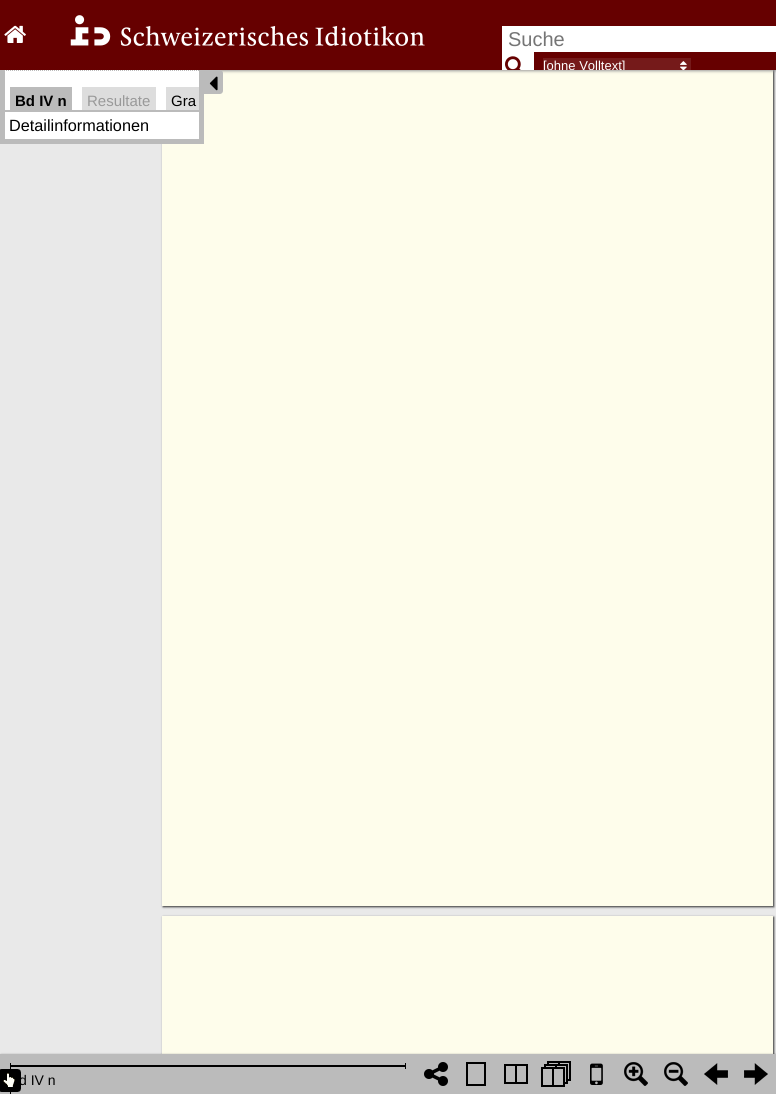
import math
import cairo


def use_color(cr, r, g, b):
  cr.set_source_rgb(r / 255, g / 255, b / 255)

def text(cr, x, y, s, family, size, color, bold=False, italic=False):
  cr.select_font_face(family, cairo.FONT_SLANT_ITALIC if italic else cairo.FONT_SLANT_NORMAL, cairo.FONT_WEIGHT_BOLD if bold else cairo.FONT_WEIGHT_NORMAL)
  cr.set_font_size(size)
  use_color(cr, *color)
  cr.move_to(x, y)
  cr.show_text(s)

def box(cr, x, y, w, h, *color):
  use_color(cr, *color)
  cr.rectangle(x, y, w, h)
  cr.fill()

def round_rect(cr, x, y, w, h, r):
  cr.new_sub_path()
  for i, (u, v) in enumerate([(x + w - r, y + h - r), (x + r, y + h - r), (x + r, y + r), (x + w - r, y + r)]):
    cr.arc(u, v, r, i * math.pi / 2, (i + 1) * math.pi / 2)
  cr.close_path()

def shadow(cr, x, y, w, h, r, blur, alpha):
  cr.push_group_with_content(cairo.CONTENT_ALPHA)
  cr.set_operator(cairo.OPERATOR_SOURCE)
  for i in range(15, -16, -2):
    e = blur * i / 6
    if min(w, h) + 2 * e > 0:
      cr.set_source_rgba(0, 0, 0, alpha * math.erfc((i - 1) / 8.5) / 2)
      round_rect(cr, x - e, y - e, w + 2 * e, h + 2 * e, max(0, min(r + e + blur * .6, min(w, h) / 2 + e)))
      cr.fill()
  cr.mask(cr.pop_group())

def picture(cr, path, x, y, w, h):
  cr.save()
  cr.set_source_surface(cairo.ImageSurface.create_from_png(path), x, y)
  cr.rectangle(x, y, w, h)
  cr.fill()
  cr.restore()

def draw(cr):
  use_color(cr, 233, 233, 233)
  cr.paint()
  use_color(cr, 51, 51, 51)
  shadow(cr, 163, 41, 611, 866, 0, 1, 1)
  box(cr, 162, 70, 611, 836, 254, 253, 235)
  use_color(cr, 153, 153, 153)
  shadow(cr, 0, 1, 776, 70, 0, 1.5, 1)
  box(cr, 0, 0, 776, 70, 102, 0, 0)
  box(cr, 543, 58, 148, 12, 117, 26, 26)
  picture(cr, "img_01.png", 70, 15, 355, 31)
  picture(cr, "img_02.png", 4, 25, 22, 18)
  box(cr, 502, 26, 274, 26, 255, 255, 255)
  box(cr, 502, 52, 32, 18, 255, 255, 255)
  picture(cr, "img_03.png", 505, 56, 16, 14)
  picture(cr, "img_04.png", 680, 61, 7, 9)
  use_color(cr, 51, 51, 51)
  shadow(cr, 163, 917, 611, 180, 0, 1, 1)
  box(cr, 162, 916, 611, 138, 254, 253, 235)
  use_color(cr, 187, 187, 187)
  cr.new_path()
  cr.move_to(204, 70)
  cr.line_to(220, 70)
  cr.curve_to(221.5, 70, 223, 71.5, 223, 73)
  cr.line_to(223, 91)
  cr.curve_to(223, 92.5, 221.5, 94, 220, 94)
  cr.line_to(204, 94)
  cr.close_path()
  cr.fill()
  picture(cr, "img_05.png", 209, 76, 9, 15)
  box(cr, 5, 70, 194, 69, 255, 255, 255)
  cr.new_path()
  cr.move_to(0, 70.5)
  cr.line_to(204, 70.5)
  use_color(cr, 187, 187, 187)
  cr.set_line_width(1)
  cr.set_dash([1, 1])
  cr.stroke()
  box(cr, 199, 70, 5, 74, 187, 187, 187)
  box(cr, 0, 70, 5, 74, 187, 187, 187)
  box(cr, 5, 110, 194, 2, 187, 187, 187)
  box(cr, 10, 87, 62, 23, 187, 187, 187)
  box(cr, 82, 87, 74, 23, 221, 221, 221)
  box(cr, 166, 87, 33, 23, 221, 221, 221)
  box(cr, 5, 139, 194, 5, 187, 187, 187)
  use_color(cr, 51, 51, 51)
  shadow(cr, 1, 1055, 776, 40, 0, 1, 1)
  box(cr, 0, 1054, 776, 40, 187, 187, 187)
  box(cr, 10, 1065, 396, 2, 0, 0, 0)
  box(cr, 10, 1063, 1, 6, 0, 0, 0)
  box(cr, 405, 1063, 1, 6, 0, 0, 0)
  picture(cr, "img_07.png", 424, 1062, 24, 24)
  picture(cr, "img_08.png", 466, 1062, 20, 24)
  picture(cr, "img_09.png", 504, 1064, 24, 20)
  picture(cr, "img_10.png", 541, 1061, 30, 26)
  picture(cr, "img_11.png", 590, 1063, 13, 22)
  picture(cr, "img_12.png", 624, 1062, 24, 24)
  picture(cr, "img_13.png", 664, 1062, 24, 24)
  picture(cr, "img_14.png", 704, 1063, 24, 22)
  picture(cr, "img_15.png", 744, 1063, 24, 22)
  text(cr, 508, 46, "Suche", "Liberation Sans", 20, (117, 117, 117))
  cr.save()
  cr.rectangle(543, 58, 132, 12)
  cr.clip()
  text(cr, 543, 70, "[ohne Volltext]", "Liberation Sans", 13, (255, 255, 255))
  cr.restore()
  text(cr, 15, 106, "Bd IV n", "Liberation Sans", 15, (0, 0, 0), bold=True)
  text(cr, 87, 106, "Resultate", "Liberation Sans", 15, (153, 153, 153))
  text(cr, 171, 106, "Gra", "Liberation Sans", 15, (0, 0, 0))
  text(cr, 9, 131, "Detailinformationen", "Liberation Sans", 16.25, (0, 0, 0))
  text(cr, 19, 1085, "d IV n", "Liberation Sans", 14, (0, 0, 0))
  picture(cr, "img_06.png", 0, 1069, 21, 25)


surface = cairo.ImageSurface(cairo.FORMAT_RGB24, 776, 1094)
cr = cairo.Context(surface)
options = cairo.FontOptions()
options.set_hint_metrics(cairo.HINT_METRICS_OFF)
options.set_hint_style(cairo.HINT_STYLE_NONE)
cr.set_font_options(options)
cr.set_miter_limit(4)
draw(cr)
surface.write_to_png("out.png")
